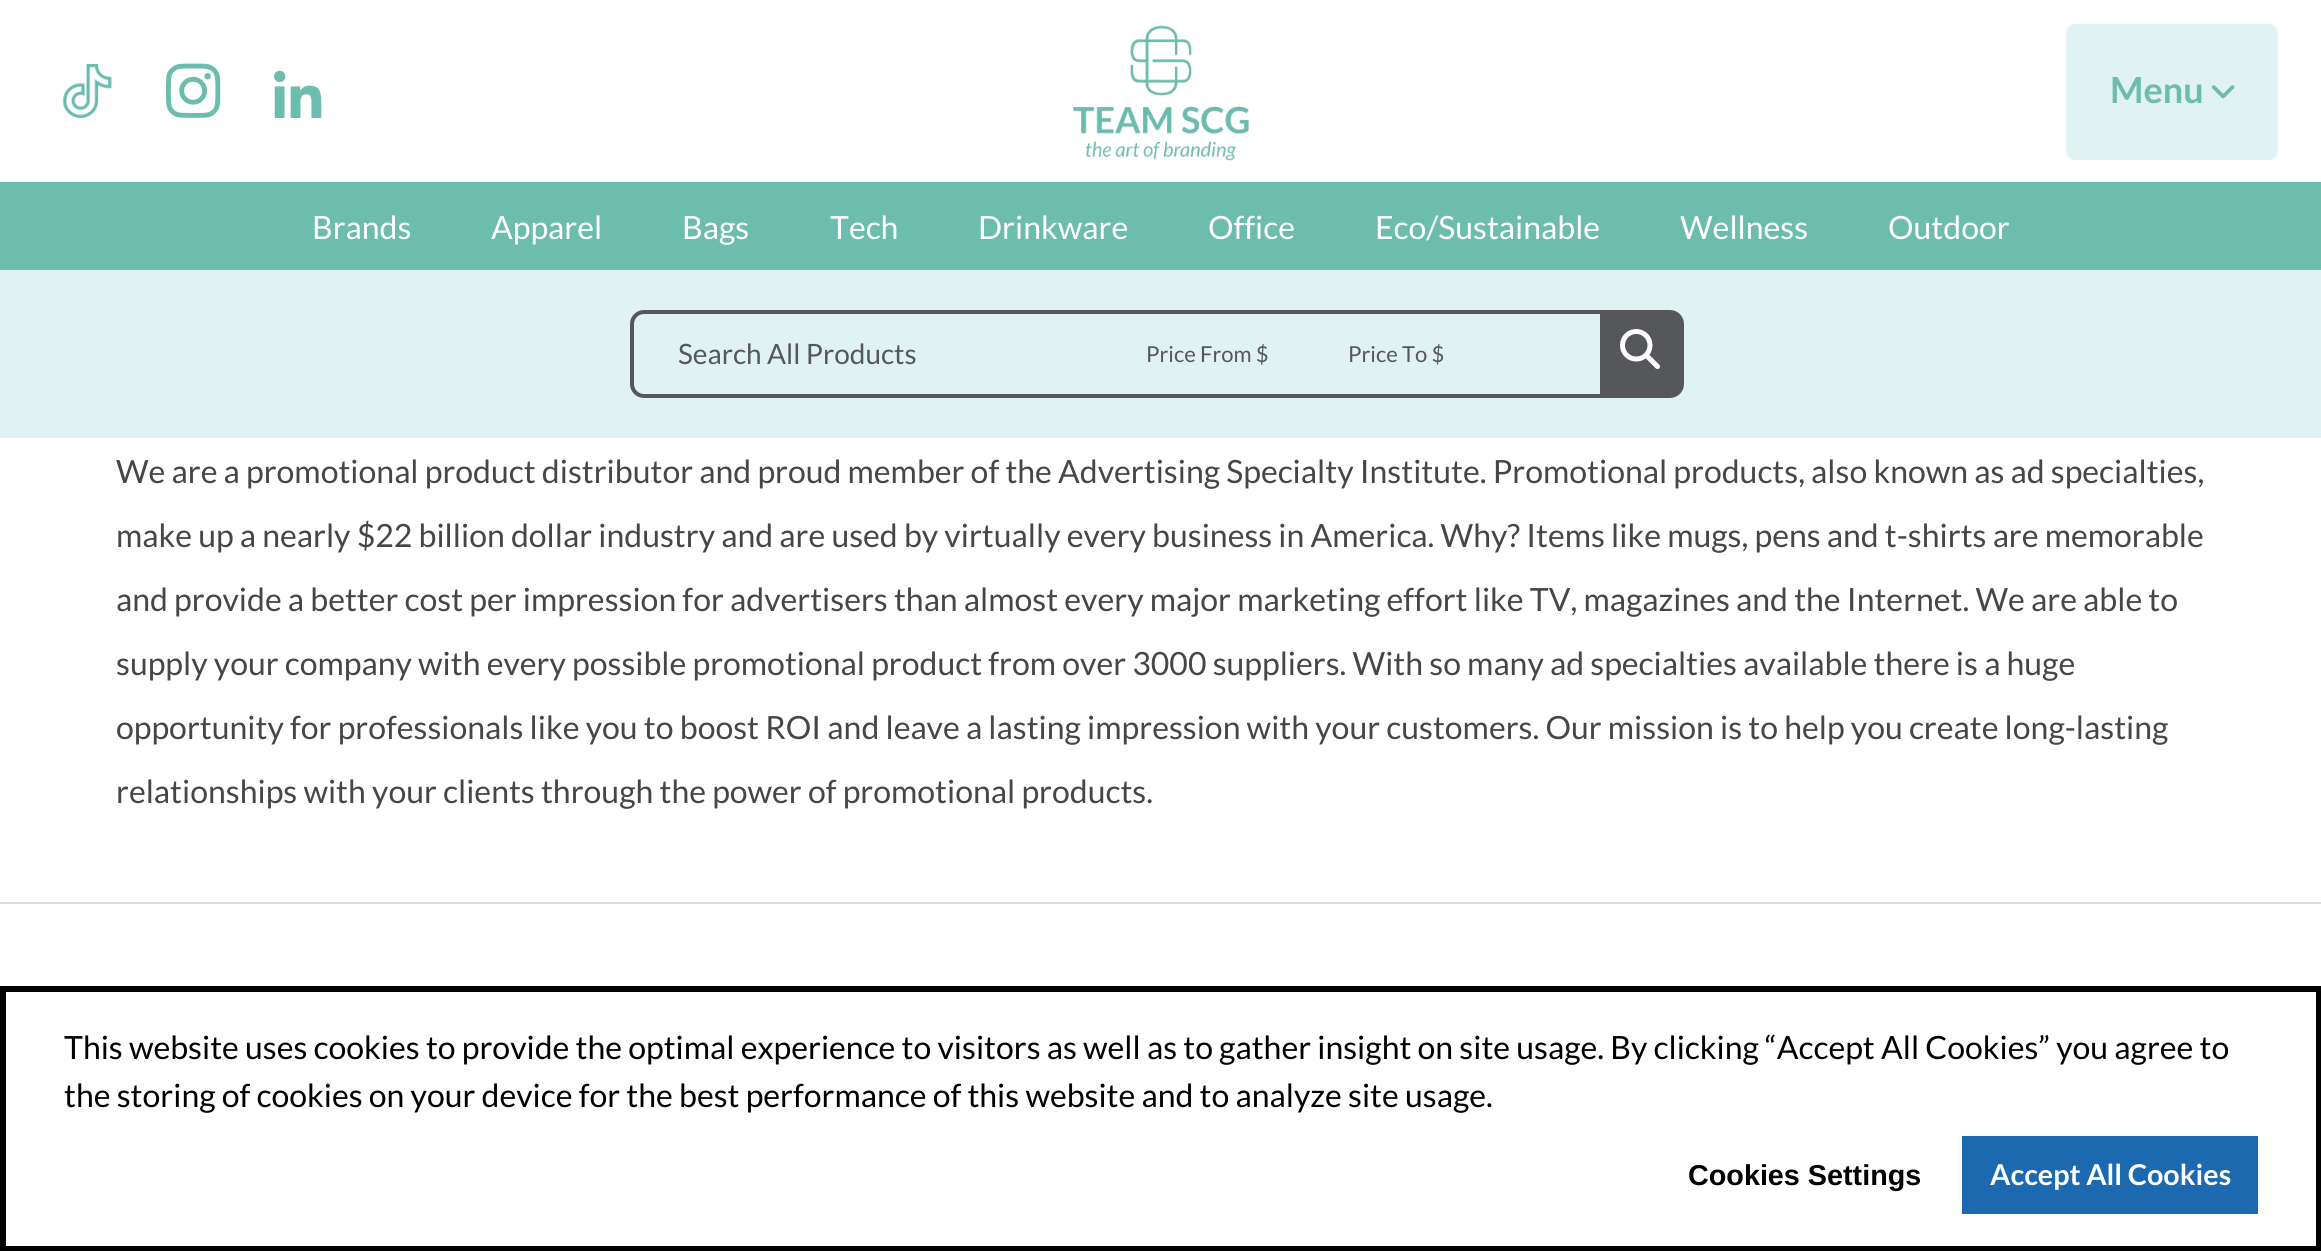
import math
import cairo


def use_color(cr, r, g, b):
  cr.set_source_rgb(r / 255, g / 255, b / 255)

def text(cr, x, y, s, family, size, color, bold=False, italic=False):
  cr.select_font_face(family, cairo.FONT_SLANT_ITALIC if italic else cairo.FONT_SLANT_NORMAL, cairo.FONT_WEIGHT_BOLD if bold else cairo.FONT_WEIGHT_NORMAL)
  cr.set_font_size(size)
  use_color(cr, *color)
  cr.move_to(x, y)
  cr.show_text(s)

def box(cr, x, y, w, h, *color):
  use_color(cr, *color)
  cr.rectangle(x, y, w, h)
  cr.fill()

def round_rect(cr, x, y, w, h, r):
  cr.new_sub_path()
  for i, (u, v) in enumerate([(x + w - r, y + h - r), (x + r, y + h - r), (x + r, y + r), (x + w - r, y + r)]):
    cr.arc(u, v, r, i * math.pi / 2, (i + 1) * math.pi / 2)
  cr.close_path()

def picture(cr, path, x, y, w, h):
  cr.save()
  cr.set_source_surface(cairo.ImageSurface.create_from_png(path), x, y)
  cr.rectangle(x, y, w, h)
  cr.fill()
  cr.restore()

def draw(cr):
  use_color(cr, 255, 255, 255)
  cr.paint()
  picture(cr, "img_01.png", 62, 64, 50, 54)
  picture(cr, "img_02.png", 166, 63, 55, 55)
  picture(cr, "img_03.png", 274, 70, 48, 48)
  picture(cr, "img_04.png", 1072, 25, 177, 136)
  use_color(cr, 224, 242, 242)
  round_rect(cr, 2066, 24, 212, 136, 10)
  cr.fill()
  picture(cr, "img_05.png", 2211, 85, 24, 14)
  box(cr, 0, 270, 2321, 168, 224, 242, 242)
  box(cr, 0, 182, 2321, 88, 109, 189, 175)
  round_rect(cr, 632, 312, 1050, 84, 12)
  use_color(cr, 86, 87, 91)
  cr.set_line_width(4)
  cr.stroke()
  cr.new_path()
  cr.move_to(1600, 314)
  cr.line_to(1674, 314)
  cr.curve_to(1677.5, 314, 1680, 316.5, 1680, 320)
  cr.line_to(1680, 388)
  cr.curve_to(1680, 391.5, 1677.5, 394, 1674, 394)
  cr.line_to(1600, 394)
  cr.close_path()
  cr.fill()
  picture(cr, "img_06.png", 1620, 329, 40, 40)
  box(cr, 0, 902, 2321, 2, 221, 221, 221)
  cr.rectangle(3, 989, 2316, 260)
  use_color(cr, 0, 0, 0)
  cr.set_line_width(6)
  cr.stroke()
  box(cr, 1962, 1136, 296, 78, 28, 105, 175)
  text(cr, 2110, 103, "Menu", "Lato", 36, (109, 189, 175), bold=True)
  text(cr, 312, 239, "Brands", "Lato", 32, (255, 255, 255))
  text(cr, 491, 239, "Apparel", "Lato", 32, (255, 255, 255))
  text(cr, 682, 239, "Bags", "Lato", 32, (255, 255, 255))
  text(cr, 830, 239, "Tech", "Lato", 32, (255, 255, 255))
  text(cr, 978, 239, "Drinkware", "Lato", 32, (255, 255, 255))
  text(cr, 1208, 239, "Office", "Lato", 32, (255, 255, 255))
  text(cr, 1375, 239, "Eco/Sustainable", "Lato", 32, (255, 255, 255))
  text(cr, 1680, 239, "Wellness", "Lato", 32, (255, 255, 255))
  text(cr, 1888, 239, "Outdoor", "Lato", 32, (255, 255, 255))
  text(cr, 678, 364, "Search All Products", "Lato", 28, (86, 87, 91))
  text(cr, 1146, 362, "Price From $", "Lato", 22, (86, 87, 91))
  text(cr, 1348, 362, "Price To $", "Lato", 22, (86, 87, 91))
  text(cr, 116, 483, "We are a promotional product distributor and proud member of the Advertising Specialty Institute. Promotional products, also known as ad specialties,", "Lato", 32, (70, 70, 70))
  text(cr, 116, 547, "make up a nearly $22 billion dollar industry and are used by virtually every business in America. Why? Items like mugs, pens and t-shirts are memorable", "Lato", 32, (70, 70, 70))
  text(cr, 116, 611, "and provide a better cost per impression for advertisers than almost every major marketing effort like TV, magazines and the Internet. We are able to", "Lato", 32, (70, 70, 70))
  text(cr, 116, 675, "supply your company with every possible promotional product from over 3000 suppliers. With so many ad specialties available there is a huge", "Lato", 32, (70, 70, 70))
  text(cr, 116, 739, "opportunity for professionals like you to boost ROI and leave a lasting impression with your customers. Our mission is to help you create long-lasting", "Lato", 32, (70, 70, 70))
  text(cr, 116, 803, "relationships with your clients through the power of promotional products.", "Lato", 32, (70, 70, 70))
  text(cr, 64, 1059, "This website uses cookies to provide the optimal experience to visitors as well as to gather insight on site usage. By clicking “Accept All Cookies” you agree to", "Lato", 32, (0, 0, 0))
  text(cr, 64, 1107, "the storing of cookies on your device for the best performance of this website and to analyze site usage.", "Lato", 32, (0, 0, 0))
  text(cr, 1688, 1185, "Cookies Settings", "Liberation Sans", 28.75, (0, 0, 0), bold=True)
  text(cr, 1990, 1185, "Accept All Cookies", "Lato", 28.75, (255, 255, 255), bold=True)


surface = cairo.ImageSurface(cairo.FORMAT_RGB24, 2321, 1251)
cr = cairo.Context(surface)
options = cairo.FontOptions()
options.set_hint_metrics(cairo.HINT_METRICS_OFF)
options.set_hint_style(cairo.HINT_STYLE_NONE)
cr.set_font_options(options)
cr.set_miter_limit(4)
draw(cr)
surface.write_to_png("out.png")
